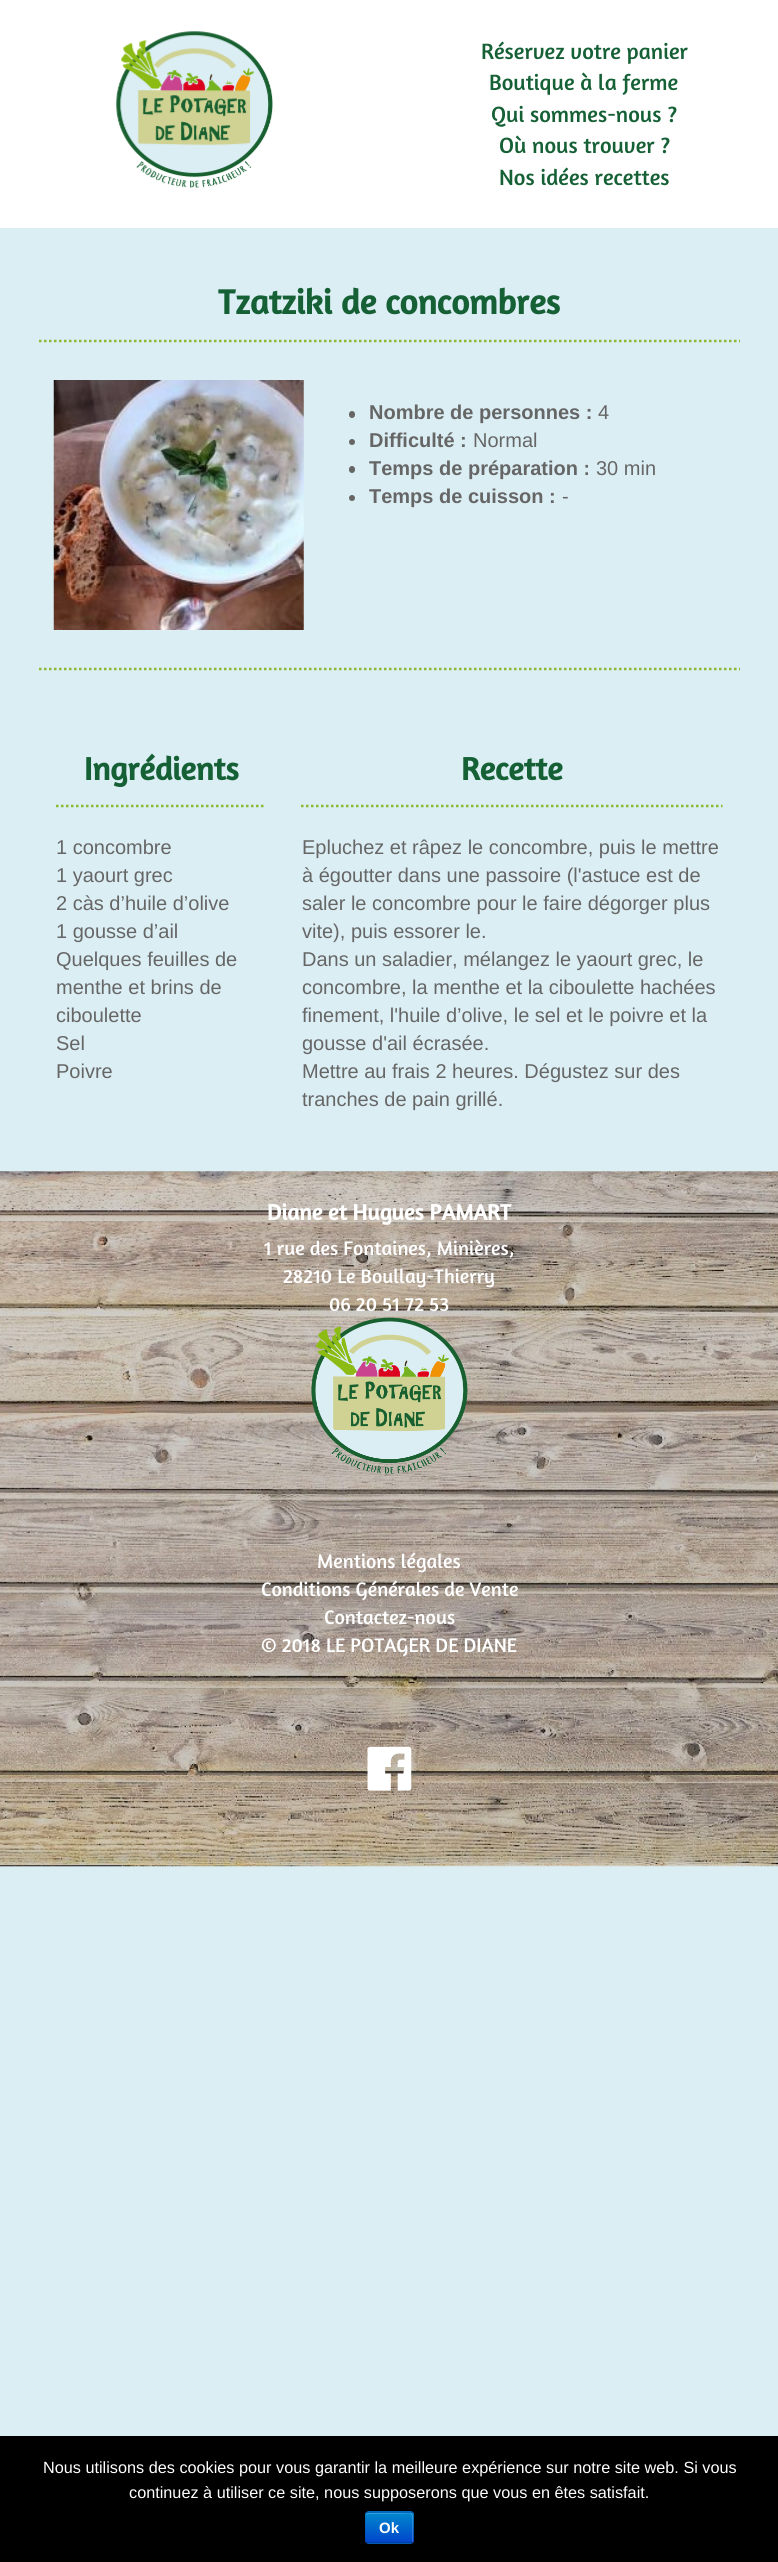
import math
import cairo


def use_color(cr, r, g, b):
  cr.set_source_rgb(r / 255, g / 255, b / 255)

def text(cr, x, y, s, family, size, color, bold=False, italic=False):
  cr.select_font_face(family, cairo.FONT_SLANT_ITALIC if italic else cairo.FONT_SLANT_NORMAL, cairo.FONT_WEIGHT_BOLD if bold else cairo.FONT_WEIGHT_NORMAL)
  cr.set_font_size(size)
  use_color(cr, *color)
  cr.move_to(x, y)
  cr.show_text(s)

def box(cr, x, y, w, h, *color):
  use_color(cr, *color)
  cr.rectangle(x, y, w, h)
  cr.fill()

def round_rect(cr, x, y, w, h, r):
  cr.new_sub_path()
  for i, (u, v) in enumerate([(x + w - r, y + h - r), (x + r, y + h - r), (x + r, y + r), (x + w - r, y + r)]):
    cr.arc(u, v, r, i * math.pi / 2, (i + 1) * math.pi / 2)
  cr.close_path()

def picture(cr, path, x, y, w, h):
  cr.save()
  cr.set_source_surface(cairo.ImageSurface.create_from_png(path), x, y)
  cr.rectangle(x, y, w, h)
  cr.fill()
  cr.restore()

def draw(cr):
  use_color(cr, 219, 238, 244)
  cr.paint()
  box(cr, 0, 0, 778, 228, 255, 255, 255)
  picture(cr, "img_01.png", 116, 31, 157, 157)
  cr.new_path()
  cr.move_to(39, 341)
  cr.line_to(740, 341)
  use_color(cr, 137, 186, 50)
  cr.set_line_width(2.5)
  cr.set_dash([2.5, 2.5])
  cr.stroke()
  cr.new_path()
  cr.move_to(39, 669)
  cr.line_to(740, 669)
  cr.stroke()
  picture(cr, "img_02.png", 53, 380, 251, 250)
  use_color(cr, 102, 102, 102)
  round_rect(cr, 349, 411, 6, 7, 3)
  cr.fill()
  cr.arc(352, 442, 3, 0, 2 * math.pi)
  cr.fill()
  round_rect(cr, 349, 466, 6, 7, 3)
  cr.fill()
  cr.arc(352, 498, 3, 0, 2 * math.pi)
  cr.fill()
  cr.new_path()
  cr.move_to(56, 806)
  cr.line_to(266, 806)
  use_color(cr, 137, 186, 50)
  cr.stroke()
  cr.new_path()
  cr.move_to(301, 806)
  cr.line_to(722.5, 806)
  cr.stroke()
  picture(cr, "img_03.png", 0, 1171, 778, 696)
  picture(cr, "img_04.png", 311, 1317, 157, 157)
  picture(cr, "img_05.png", 367, 1746, 45, 45)
  box(cr, 0, 2436, 778, 126, 0, 0, 0)
  use_color(cr, 0, 109, 204)
  round_rect(cr, 365, 2511, 49, 33, 4)
  cr.fill()
  cr.save()
  round_rect(cr, 365, 2511, 49, 33, 4)
  cr.clip()
  gradient = cairo.LinearGradient(389, 2513, 389, 2543)
  gradient.add_color_stop_rgba(0, 0, 0.533, 0.8, 1)
  gradient.add_color_stop_rgba(1, 0, 0.267, 0.8, 1)
  cr.set_source(gradient)
  cr.rectangle(365, 2513, 49, 30)
  cr.fill()
  cr.restore()
  cr.set_source_rgba(1, 1, 1, 0.2)
  cr.new_path()
  cr.move_to(369, 2514)
  cr.line_to(396, 2514)
  cr.curve_to(413, 2514, 412, 2510, 412, 2524)
  cr.line_to(412, 2543)
  cr.curve_to(412, 2542, 413, 2541, 413, 2540)
  cr.line_to(413, 2516)
  cr.curve_to(413, 2514, 412, 2513, 410, 2513)
  cr.line_to(368, 2513)
  cr.curve_to(367, 2513, 366, 2514, 366, 2516)
  cr.curve_to(366, 2515, 367, 2514, 369, 2514)
  cr.close_path()
  cr.fill()
  cr.new_path()
  cr.move_to(412, 2542)
  cr.line_to(410, 2543)
  cr.line_to(369, 2543)
  cr.line_to(366.5, 2542)
  cr.set_source_rgba(0, 0, 0, 0.25)
  cr.set_line_width(1.2)
  cr.set_dash([])
  cr.stroke()
  cr.new_path()
  cr.move_to(366.5, 2542)
  cr.curve_to(364.5, 2540, 365.5, 2530.5, 365.5, 2527.5)
  cr.curve_to(365.5, 2512.5, 362, 2512, 375.5, 2512)
  cr.line_to(403, 2512)
  cr.curve_to(416.5, 2512, 413, 2512.5, 413, 2527.5)
  cr.curve_to(413, 2530.5, 414.5, 2540, 412, 2542)
  cr.set_source_rgba(0, 0, 0, 0.1)
  cr.stroke()
  text(cr, 481, 59, "Réservez votre panier", "Amaranth", 22.5, (22, 96, 54))
  text(cr, 489, 90, "Boutique à la ferme", "Amaranth", 22.5, (22, 96, 54))
  text(cr, 491, 122, "Qui sommes-nous ?", "Amaranth", 22.5, (22, 96, 54))
  text(cr, 499, 153, "Où nous trouver ?", "Amaranth", 22.5, (22, 96, 54))
  text(cr, 499, 185, "Nos idées recettes", "Amaranth", 22.5, (22, 96, 54))
  text(cr, 218, 314, "Tzatziki de concombres", "Amaranth", 35, (22, 96, 54), bold=True)
  text(cr, 369, 419, "Nombre de personnes :", "Liberation Sans", 20, (102, 102, 102), bold=True)
  text(cr, 598, 419, "4", "Liberation Sans", 20, (102, 102, 102))
  text(cr, 369, 447, "Difficulté :", "Liberation Sans", 20, (102, 102, 102), bold=True)
  text(cr, 473, 447, "Normal", "Liberation Sans", 20, (102, 102, 102))
  text(cr, 369, 475, "Temps de préparation :", "Liberation Sans", 20, (102, 102, 102), bold=True)
  text(cr, 596, 475, "30 min", "Liberation Sans", 20, (102, 102, 102))
  text(cr, 369, 503, "Temps de cuisson :", "Liberation Sans", 20, (102, 102, 102), bold=True)
  text(cr, 562, 503, "-", "Liberation Sans", 20, (102, 102, 102))
  text(cr, 84, 780, "Ingrédients", "Amaranth", 32.5, (22, 96, 54), bold=True)
  text(cr, 56, 854, "1 concombre", "Liberation Sans", 20, (102, 102, 102))
  text(cr, 56, 882, "1 yaourt grec", "Liberation Sans", 20, (102, 102, 102))
  text(cr, 56, 910, "2 càs d’huile d’olive", "Liberation Sans", 20, (102, 102, 102))
  text(cr, 56, 938, "1 gousse d’ail", "Liberation Sans", 20, (102, 102, 102))
  text(cr, 56, 966, "Quelques feuilles de", "Liberation Sans", 20, (102, 102, 102))
  text(cr, 56, 994, "menthe et brins de", "Liberation Sans", 20, (102, 102, 102))
  text(cr, 56, 1022, "ciboulette", "Liberation Sans", 20, (102, 102, 102))
  text(cr, 56, 1050, "Sel", "Liberation Sans", 20, (102, 102, 102))
  text(cr, 56, 1078, "Poivre", "Liberation Sans", 20, (102, 102, 102))
  text(cr, 461, 780, "Recette", "Amaranth", 32.5, (22, 96, 54), bold=True)
  text(cr, 302, 854, "Epluchez et râpez le concombre, puis le mettre", "Liberation Sans", 20, (102, 102, 102))
  text(cr, 302, 882, "à égoutter dans une passoire (l'astuce est de", "Liberation Sans", 20, (102, 102, 102))
  text(cr, 302, 910, "saler le concombre pour le faire dégorger plus", "Liberation Sans", 20, (102, 102, 102))
  text(cr, 302, 938, "vite), puis essorer le.", "Liberation Sans", 20, (102, 102, 102))
  text(cr, 302, 966, "Dans un saladier, mélangez le yaourt grec, le", "Liberation Sans", 20, (102, 102, 102))
  text(cr, 302, 994, "concombre, la menthe et la ciboulette hachées", "Liberation Sans", 20, (102, 102, 102))
  text(cr, 302, 1022, "finement, l'huile d’olive, le sel et le poivre et la", "Liberation Sans", 20, (102, 102, 102))
  text(cr, 302, 1050, "gousse d'ail écrasée.", "Liberation Sans", 20, (102, 102, 102))
  text(cr, 302, 1078, "Mettre au frais 2 heures. Dégustez sur des", "Liberation Sans", 20, (102, 102, 102))
  text(cr, 302, 1106, "tranches de pain grillé.", "Liberation Sans", 20, (102, 102, 102))
  text(cr, 267, 1220, "Diane et Hugues PAMART", "Amaranth", 22.5, (255, 255, 255), bold=True)
  text(cr, 264, 1255, "1 rue des Fontaines, Minières,", "Amaranth", 20, (255, 255, 255))
  text(cr, 283, 1283, "28210 Le Boullay-Thierry", "Amaranth", 20, (255, 255, 255))
  text(cr, 329, 1311, "06 20 51 72 53", "Amaranth", 20, (255, 255, 255))
  text(cr, 317, 1568, "Mentions légales", "Amaranth", 20, (255, 255, 255))
  text(cr, 261, 1596, "Conditions Générales de Vente", "Amaranth", 20, (255, 255, 255))
  text(cr, 324, 1624, "Contactez-nous", "Amaranth", 20, (255, 255, 255))
  text(cr, 261, 1652, "© 2018 LE POTAGER DE DIANE", "Amaranth", 20, (255, 255, 255))
  text(cr, 43, 2473, "Nous utilisons des cookies pour vous garantir la meilleure expérience sur notre site web. Si vous", "Liberation Sans", 16.25, (255, 255, 255))
  text(cr, 129, 2498, "continuez à utiliser ce site, nous supposerons que vous en êtes satisfait.", "Liberation Sans", 16.25, (255, 255, 255))
  text(cr, 379, 2533, "Ok", "Liberation Sans", 15, (255, 255, 255), bold=True)


surface = cairo.ImageSurface(cairo.FORMAT_RGB24, 778, 2562)
cr = cairo.Context(surface)
options = cairo.FontOptions()
options.set_hint_metrics(cairo.HINT_METRICS_OFF)
options.set_hint_style(cairo.HINT_STYLE_NONE)
cr.set_font_options(options)
cr.set_miter_limit(4)
draw(cr)
surface.write_to_png("out.png")
